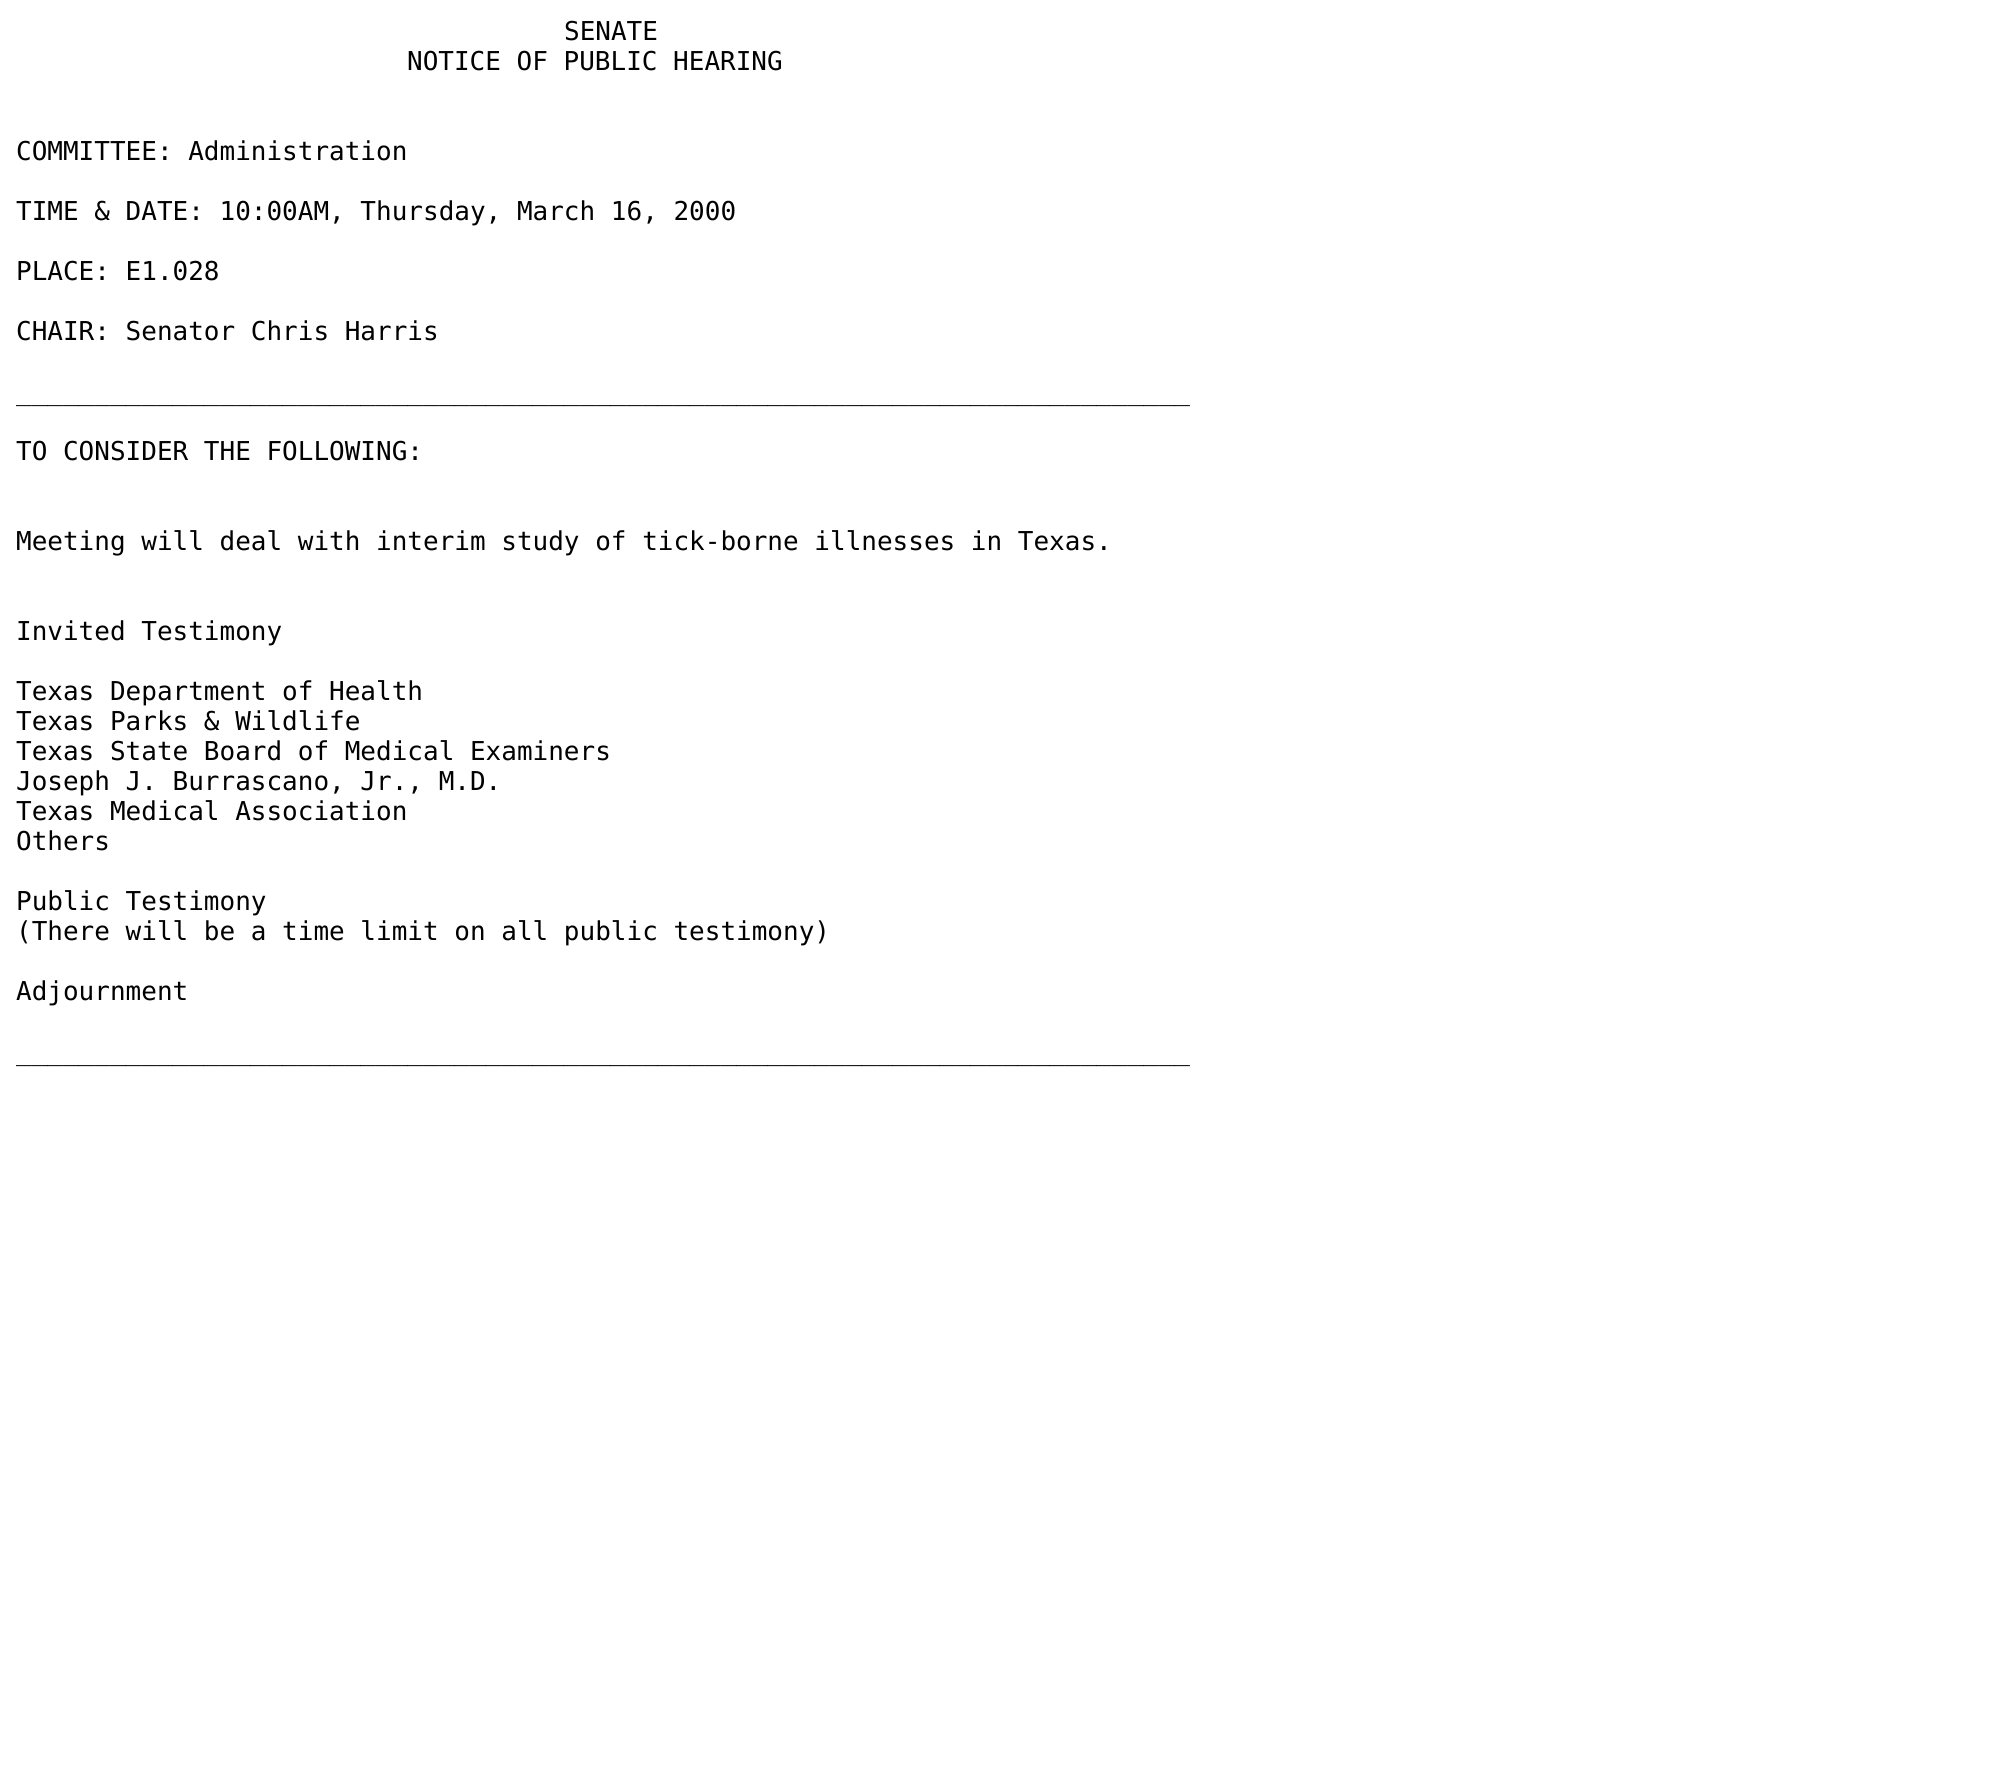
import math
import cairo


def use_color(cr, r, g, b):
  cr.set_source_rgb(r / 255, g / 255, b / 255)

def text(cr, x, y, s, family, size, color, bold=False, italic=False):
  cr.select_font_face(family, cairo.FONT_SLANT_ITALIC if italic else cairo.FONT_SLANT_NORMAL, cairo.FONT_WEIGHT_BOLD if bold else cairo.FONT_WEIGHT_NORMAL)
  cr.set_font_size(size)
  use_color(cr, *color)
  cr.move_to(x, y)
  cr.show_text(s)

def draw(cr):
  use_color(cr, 255, 255, 255)
  cr.paint()
  text(cr, 564, 40, "SENATE", "DejaVu Sans Mono", 26, (0, 0, 0))
  text(cr, 407, 70, "NOTICE OF PUBLIC HEARING", "DejaVu Sans Mono", 26, (0, 0, 0))
  text(cr, 16, 160, "COMMITTEE: Administration", "DejaVu Sans Mono", 26, (0, 0, 0))
  text(cr, 16, 220, "TIME & DATE: 10:00AM, Thursday, March 16, 2000", "DejaVu Sans Mono", 26, (0, 0, 0))
  text(cr, 16, 280, "PLACE: E1.028", "DejaVu Sans Mono", 26, (0, 0, 0))
  text(cr, 16, 340, "CHAIR: Senator Chris Harris", "DejaVu Sans Mono", 26, (0, 0, 0))
  text(cr, 16, 400, "___________________________________________________________________________", "DejaVu Sans Mono", 26, (0, 0, 0))
  text(cr, 16, 460, "TO CONSIDER THE FOLLOWING:", "DejaVu Sans Mono", 26, (0, 0, 0))
  text(cr, 16, 550, "Meeting will deal with interim study of tick-borne illnesses in Texas.", "DejaVu Sans Mono", 26, (0, 0, 0))
  text(cr, 16, 640, "Invited Testimony", "DejaVu Sans Mono", 26, (0, 0, 0))
  text(cr, 16, 700, "Texas Department of Health", "DejaVu Sans Mono", 26, (0, 0, 0))
  text(cr, 16, 730, "Texas Parks & Wildlife", "DejaVu Sans Mono", 26, (0, 0, 0))
  text(cr, 16, 760, "Texas State Board of Medical Examiners", "DejaVu Sans Mono", 26, (0, 0, 0))
  text(cr, 16, 790, "Joseph J. Burrascano, Jr., M.D.", "DejaVu Sans Mono", 26, (0, 0, 0))
  text(cr, 16, 820, "Texas Medical Association", "DejaVu Sans Mono", 26, (0, 0, 0))
  text(cr, 16, 850, "Others", "DejaVu Sans Mono", 26, (0, 0, 0))
  text(cr, 16, 910, "Public Testimony", "DejaVu Sans Mono", 26, (0, 0, 0))
  text(cr, 16, 940, "(There will be a time limit on all public testimony)", "DejaVu Sans Mono", 26, (0, 0, 0))
  text(cr, 16, 1000, "Adjournment", "DejaVu Sans Mono", 26, (0, 0, 0))
  text(cr, 16, 1060, "___________________________________________________________________________", "DejaVu Sans Mono", 26, (0, 0, 0))


surface = cairo.ImageSurface(cairo.FORMAT_RGB24, 1991, 1785)
cr = cairo.Context(surface)
options = cairo.FontOptions()
options.set_hint_metrics(cairo.HINT_METRICS_OFF)
options.set_hint_style(cairo.HINT_STYLE_NONE)
cr.set_font_options(options)
cr.set_miter_limit(4)
draw(cr)
surface.write_to_png("out.png")
